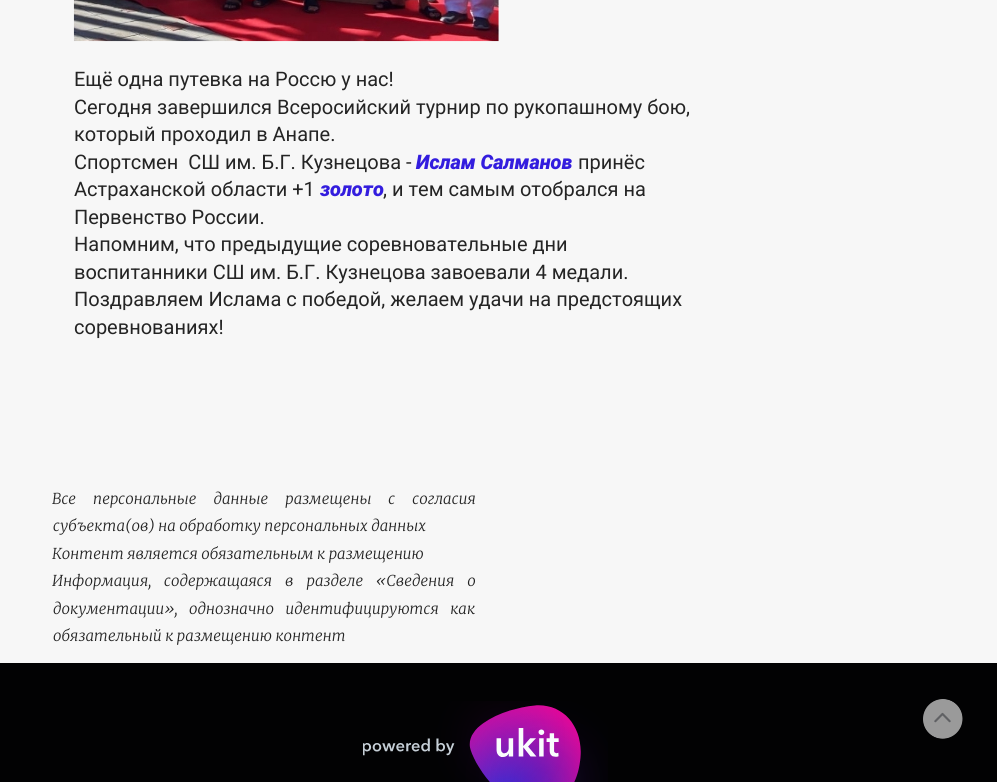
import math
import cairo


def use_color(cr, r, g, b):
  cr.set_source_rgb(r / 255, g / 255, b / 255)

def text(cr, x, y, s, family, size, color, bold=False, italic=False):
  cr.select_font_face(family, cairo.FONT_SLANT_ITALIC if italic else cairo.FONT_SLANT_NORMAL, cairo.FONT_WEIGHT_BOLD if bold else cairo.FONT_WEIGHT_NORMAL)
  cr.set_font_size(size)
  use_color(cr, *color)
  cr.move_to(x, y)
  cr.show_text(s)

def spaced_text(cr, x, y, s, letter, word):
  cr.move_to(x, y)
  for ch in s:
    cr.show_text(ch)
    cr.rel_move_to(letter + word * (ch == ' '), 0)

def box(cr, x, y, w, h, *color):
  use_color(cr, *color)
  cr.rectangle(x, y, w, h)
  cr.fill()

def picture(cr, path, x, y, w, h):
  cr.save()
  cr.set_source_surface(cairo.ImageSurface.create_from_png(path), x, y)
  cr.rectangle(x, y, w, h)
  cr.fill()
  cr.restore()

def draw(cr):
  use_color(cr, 247, 247, 247)
  cr.paint()
  picture(cr, "img_01.png", 73, 0, 426, 42)
  box(cr, 0, 663, 997, 119, 2, 2, 3)
  picture(cr, "img_02.png", 363, 701, 245, 81)
  picture(cr, "img_03.png", 923, 699, 40, 40)
  text(cr, 74, 86, "Ещё одна путевка на Россю у нас!", "Roboto", 20, (36, 36, 36))
  text(cr, 74, 114, "Сегодня завершился Всеросийский турнир по рукопашному бою,", "Roboto", 20, (36, 36, 36))
  text(cr, 74, 141, "который проходил в Анапе.", "Roboto", 20, (36, 36, 36))
  text(cr, 74, 169, "Спортсмен  СШ им. Б.Г. Кузнецова -", "Roboto", 20, (36, 36, 36))
  text(cr, 416, 169, "Ислам Салманов", "Roboto Black", 20, (51, 29, 222), italic=True)
  text(cr, 578, 169, "принёс", "Roboto", 20, (36, 36, 36))
  text(cr, 74, 196, "Астраханской области +1", "Roboto", 20, (36, 36, 36))
  text(cr, 320, 196, "золото", "Roboto Black", 20, (51, 29, 222), italic=True)
  text(cr, 383, 196, ", и тем самым отобрался на", "Roboto", 20, (36, 36, 36))
  text(cr, 74, 224, "Первенство России.", "Roboto", 20, (36, 36, 36))
  text(cr, 74, 251, "Напомним, что предыдущие соревновательные дни", "Roboto", 20, (36, 36, 36))
  text(cr, 74, 279, "воспитанники СШ им. Б.Г. Кузнецова завоевали 4 медали.", "Roboto", 20, (36, 36, 36))
  text(cr, 74, 306, "Поздравляем Ислама с победой, желаем удачи на предстоящих", "Roboto", 20, (36, 36, 36))
  text(cr, 74, 334, "соревнованиях!", "Roboto", 20, (36, 36, 36))
  cr.select_font_face("Merriweather Light", cairo.FONT_SLANT_ITALIC)
  cr.set_font_size(15)
  spaced_text(cr, 52, 504, "Все персональные данные размещены с согласия", 0.1, 13.5)
  spaced_text(cr, 53, 531, "субъекта(ов) на обработку персональных данных", 0.1, 0)
  spaced_text(cr, 52, 559, "Контент является обязательным к размещению", 0.1, 0)
  spaced_text(cr, 52, 586, "Информация, содержащаяся в разделе «Сведения о", 0.1, 9.5)
  spaced_text(cr, 53, 614, "документации», однозначно идентифицируются как", 0.1, 8)
  spaced_text(cr, 53, 641, "обязательный к размещению контент", 0.1, 0)


surface = cairo.ImageSurface(cairo.FORMAT_RGB24, 997, 782)
cr = cairo.Context(surface)
options = cairo.FontOptions()
options.set_hint_metrics(cairo.HINT_METRICS_OFF)
options.set_hint_style(cairo.HINT_STYLE_NONE)
cr.set_font_options(options)
cr.set_miter_limit(4)
draw(cr)
surface.write_to_png("out.png")
